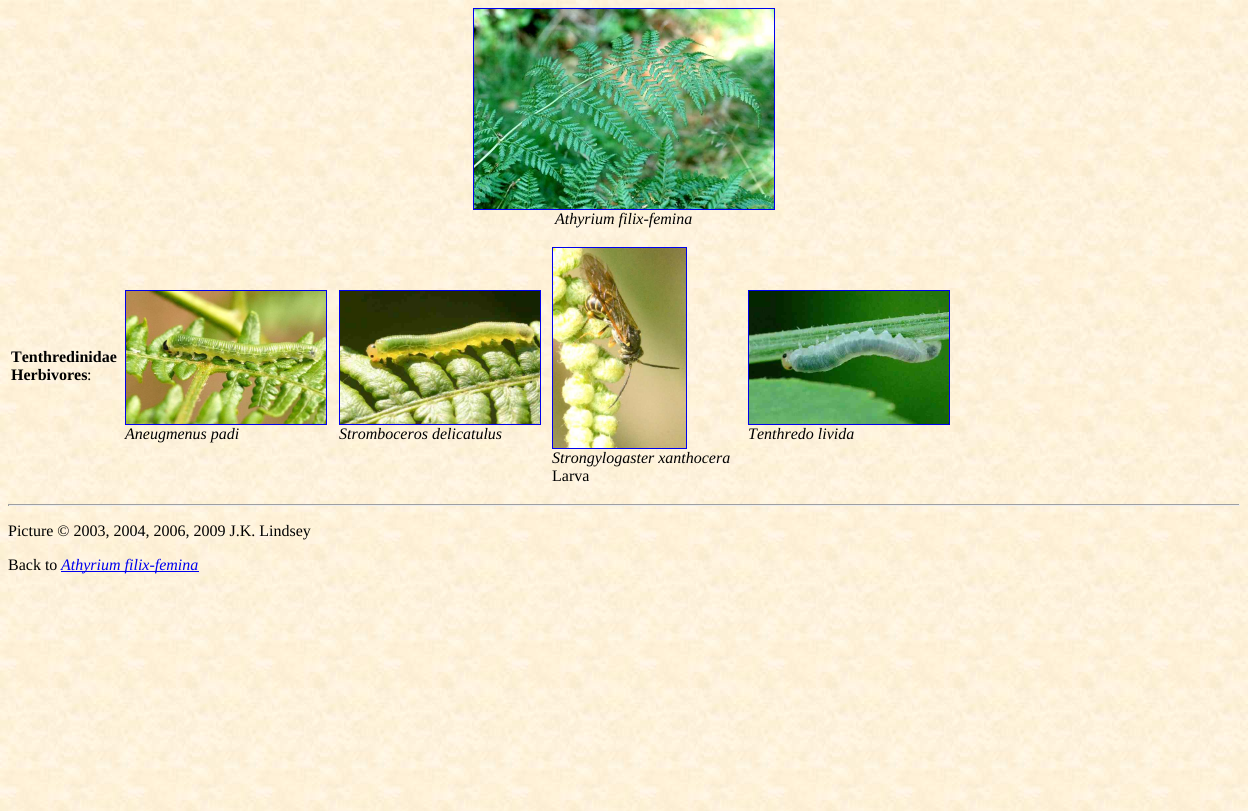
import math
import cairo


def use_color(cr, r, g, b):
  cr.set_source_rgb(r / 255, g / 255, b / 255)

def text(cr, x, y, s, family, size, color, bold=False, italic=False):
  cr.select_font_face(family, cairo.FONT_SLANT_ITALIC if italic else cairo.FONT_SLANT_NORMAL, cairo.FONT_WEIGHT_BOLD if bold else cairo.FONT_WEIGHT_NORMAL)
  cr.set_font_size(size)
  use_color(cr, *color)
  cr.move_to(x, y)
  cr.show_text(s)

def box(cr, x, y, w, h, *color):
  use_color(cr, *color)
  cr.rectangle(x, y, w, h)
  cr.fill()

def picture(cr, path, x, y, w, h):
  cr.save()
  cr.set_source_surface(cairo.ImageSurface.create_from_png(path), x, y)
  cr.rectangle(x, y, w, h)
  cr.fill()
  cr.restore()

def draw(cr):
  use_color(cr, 255, 255, 255)
  cr.paint()
  picture(cr, "img_01.png", 0, 0, 1248, 811)
  cr.rectangle(473.5, 8.5, 301, 201)
  use_color(cr, 0, 0, 238)
  cr.set_line_width(1)
  cr.stroke()
  picture(cr, "img_02.png", 474, 9, 300, 200)
  cr.rectangle(125.5, 290.5, 201, 134)
  cr.stroke()
  picture(cr, "img_03.png", 126, 291, 200, 133)
  cr.rectangle(339.5, 290.5, 201, 134)
  cr.stroke()
  picture(cr, "img_04.png", 340, 291, 200, 133)
  cr.rectangle(748.5, 290.5, 201, 134)
  cr.stroke()
  picture(cr, "img_05.png", 749, 291, 200, 133)
  cr.rectangle(552.5, 247.5, 134, 201)
  cr.stroke()
  picture(cr, "img_06.png", 553, 248, 133, 200)
  box(cr, 8, 504, 1232, 1, 159, 159, 159)
  box(cr, 1239, 504, 1, 2, 238, 238, 238)
  box(cr, 8, 505, 1232, 1, 238, 238, 238)
  box(cr, 8, 504, 1, 2, 159, 159, 159)
  box(cr, 61, 571, 138, 1, 0, 0, 238)
  text(cr, 555, 224, "Athyrium filix-femina", "Liberation Serif", 16, (0, 0, 0), italic=True)
  text(cr, 11, 362, "Tenthredinidae", "Liberation Serif", 16, (0, 0, 0), bold=True)
  text(cr, 11, 380, "Herbivores", "Liberation Serif", 16, (0, 0, 0), bold=True)
  text(cr, 87, 380, ":", "Liberation Serif", 16, (0, 0, 0))
  text(cr, 125, 439, "Aneugmenus padi", "Liberation Serif", 16, (0, 0, 0), italic=True)
  text(cr, 339, 439, "Stromboceros delicatulus", "Liberation Serif", 16, (0, 0, 0), italic=True)
  text(cr, 748, 439, "Tenthredo livida", "Liberation Serif", 16, (0, 0, 0), italic=True)
  text(cr, 552, 463, "Strongylogaster xanthocera", "Liberation Serif", 16, (0, 0, 0), italic=True)
  text(cr, 552, 481, "Larva", "Liberation Serif", 16, (0, 0, 0))
  text(cr, 8, 536, "Picture © 2003, 2004, 2006, 2009 J.K. Lindsey", "Liberation Serif", 16, (0, 0, 0))
  text(cr, 8, 570, "Back to", "Liberation Serif", 16, (0, 0, 0))
  text(cr, 61, 570, "Athyrium filix-femina", "Liberation Serif", 16, (0, 0, 238), italic=True)


surface = cairo.ImageSurface(cairo.FORMAT_RGB24, 1248, 811)
cr = cairo.Context(surface)
options = cairo.FontOptions()
options.set_hint_metrics(cairo.HINT_METRICS_OFF)
options.set_hint_style(cairo.HINT_STYLE_NONE)
cr.set_font_options(options)
cr.set_miter_limit(4)
draw(cr)
surface.write_to_png("out.png")
